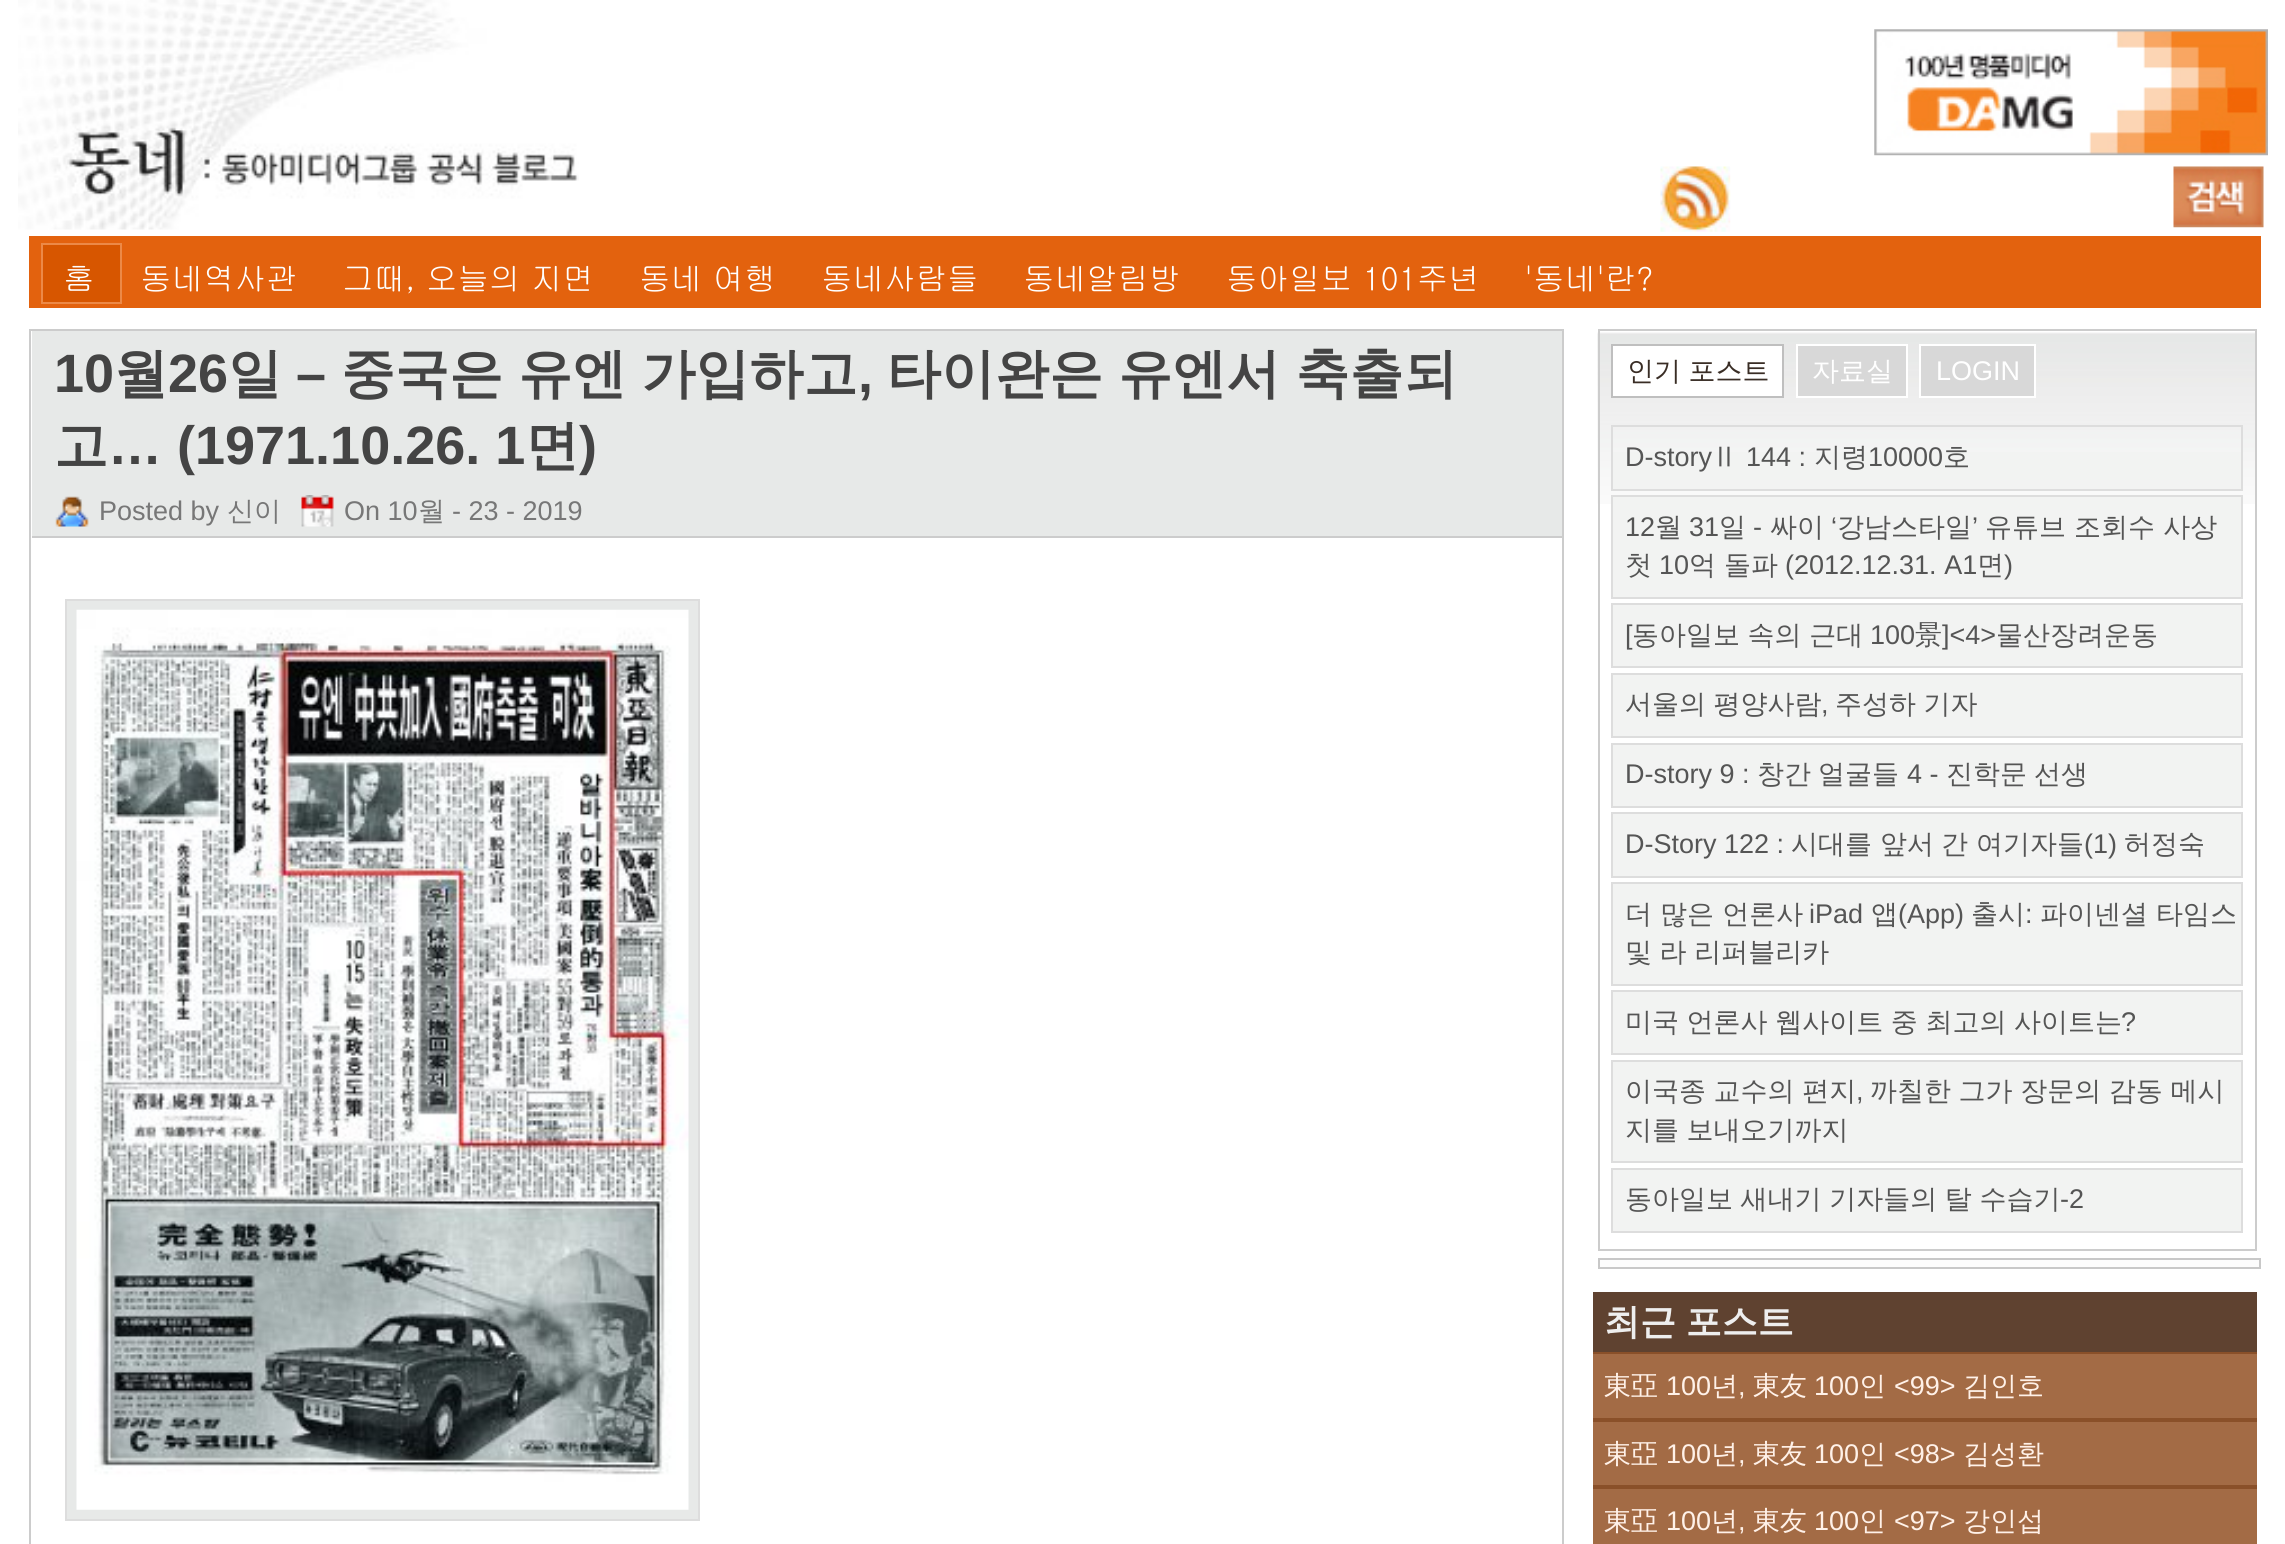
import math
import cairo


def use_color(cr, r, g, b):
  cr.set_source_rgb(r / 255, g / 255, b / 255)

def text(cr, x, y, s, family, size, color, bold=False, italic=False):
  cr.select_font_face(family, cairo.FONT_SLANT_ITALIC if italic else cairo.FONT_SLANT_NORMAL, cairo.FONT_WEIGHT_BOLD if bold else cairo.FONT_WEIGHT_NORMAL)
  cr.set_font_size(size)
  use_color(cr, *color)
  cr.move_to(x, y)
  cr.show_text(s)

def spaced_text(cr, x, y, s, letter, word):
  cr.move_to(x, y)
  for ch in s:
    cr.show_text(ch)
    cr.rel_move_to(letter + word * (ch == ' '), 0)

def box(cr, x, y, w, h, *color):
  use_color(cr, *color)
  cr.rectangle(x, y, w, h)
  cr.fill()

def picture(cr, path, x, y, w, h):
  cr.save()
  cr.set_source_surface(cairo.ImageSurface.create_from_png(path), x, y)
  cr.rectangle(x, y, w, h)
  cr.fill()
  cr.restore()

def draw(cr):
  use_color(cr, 255, 255, 255)
  cr.paint()
  picture(cr, "img_01.png", 18, 0, 561, 230)
  picture(cr, "img_02.png", 1874, 29, 394, 127)
  picture(cr, "img_03.png", 1660, 166, 71, 66)
  picture(cr, "img_04.png", 2173, 166, 91, 62)
  box(cr, 29, 236, 2232, 72, 227, 98, 14)
  use_color(cr, 215, 86, 0)
  cr.rectangle(42, 244, 79, 59)
  cr.fill_preserve()
  use_color(cr, 236, 137, 71)
  cr.stroke()
  cr.rectangle(30, 330, 1533, 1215)
  use_color(cr, 204, 204, 204)
  cr.stroke()
  box(cr, 32, 331, 1530, 205, 231, 233, 232)
  box(cr, 32, 536, 1530, 2, 204, 204, 204)
  picture(cr, "img_05.png", 55, 496, 34, 31)
  picture(cr, "img_06.png", 301, 495, 33, 32)
  use_color(cr, 231, 233, 232)
  cr.rectangle(66, 600, 633, 920)
  cr.fill_preserve()
  use_color(cr, 221, 221, 221)
  cr.stroke()
  picture(cr, "img_07.png", 76, 609, 613, 901)
  picture(cr, "img_08.png", 1597, 332, 658, 82)
  box(cr, 1598, 329, 659, 2, 204, 204, 204)
  box(cr, 2255, 329, 2, 922, 204, 204, 204)
  box(cr, 1598, 329, 2, 85, 204, 204, 204)
  use_color(cr, 255, 255, 255)
  cr.rectangle(1612, 345, 171, 52)
  cr.fill_preserve()
  use_color(cr, 191, 191, 191)
  cr.stroke()
  use_color(cr, 216, 216, 216)
  cr.rectangle(1797, 345, 110, 52)
  cr.fill_preserve()
  use_color(cr, 255, 255, 255)
  cr.stroke()
  use_color(cr, 216, 216, 216)
  cr.rectangle(1920, 345, 115, 52)
  cr.fill_preserve()
  use_color(cr, 255, 255, 255)
  cr.stroke()
  picture(cr, "img_09.png", 1597, 414, 658, 90)
  box(cr, 1598, 1249, 659, 2, 204, 204, 204)
  box(cr, 1598, 414, 2, 837, 204, 204, 204)
  box(cr, 1613, 452, 628, 37, 242, 243, 242)
  cr.rectangle(1612, 426, 630, 64)
  use_color(cr, 221, 221, 221)
  cr.stroke()
  use_color(cr, 242, 243, 242)
  cr.rectangle(1612, 496, 630, 102)
  cr.fill_preserve()
  use_color(cr, 221, 221, 221)
  cr.stroke()
  use_color(cr, 242, 243, 242)
  cr.rectangle(1612, 604, 630, 63)
  cr.fill_preserve()
  use_color(cr, 221, 221, 221)
  cr.stroke()
  use_color(cr, 242, 243, 242)
  cr.rectangle(1612, 674, 630, 63)
  cr.fill_preserve()
  use_color(cr, 221, 221, 221)
  cr.stroke()
  use_color(cr, 242, 243, 242)
  cr.rectangle(1612, 744, 630, 63)
  cr.fill_preserve()
  use_color(cr, 221, 221, 221)
  cr.stroke()
  use_color(cr, 242, 243, 242)
  cr.rectangle(1612, 813, 630, 64)
  cr.fill_preserve()
  use_color(cr, 221, 221, 221)
  cr.stroke()
  use_color(cr, 242, 243, 242)
  cr.rectangle(1612, 883, 630, 102)
  cr.fill_preserve()
  use_color(cr, 221, 221, 221)
  cr.stroke()
  use_color(cr, 242, 243, 242)
  cr.rectangle(1612, 991, 630, 63)
  cr.fill_preserve()
  use_color(cr, 221, 221, 221)
  cr.stroke()
  use_color(cr, 242, 243, 242)
  cr.rectangle(1612, 1061, 630, 101)
  cr.fill_preserve()
  use_color(cr, 221, 221, 221)
  cr.stroke()
  use_color(cr, 242, 243, 242)
  cr.rectangle(1612, 1169, 630, 63)
  cr.fill_preserve()
  use_color(cr, 221, 221, 221)
  cr.stroke()
  use_color(cr, 252, 252, 252)
  cr.rectangle(1599, 1259, 661, 9)
  cr.fill_preserve()
  use_color(cr, 200, 200, 200)
  cr.stroke()
  box(cr, 1593, 1292, 664, 60, 95, 66, 48)
  box(cr, 1593, 1354, 664, 64, 163, 107, 69)
  box(cr, 1593, 1352, 664, 2, 138, 80, 41)
  box(cr, 1593, 1418, 664, 4, 138, 80, 41)
  box(cr, 1593, 1422, 664, 63, 163, 107, 69)
  box(cr, 1593, 1485, 664, 4, 138, 80, 41)
  box(cr, 1593, 1489, 664, 55, 163, 107, 69)
  text(cr, 63, 290, "홈", "Gulim", 31.5, (255, 255, 255))
  text(cr, 140, 290, "동네역사관", "Gulim", 31.5, (255, 255, 255))
  text(cr, 342, 290, "그때, 오늘의 지면", "Gulim", 31.5, (255, 255, 255))
  text(cr, 639, 290, "동네 여행", "Gulim", 31.5, (255, 255, 255))
  text(cr, 821, 290, "동네사람들", "Gulim", 31.5, (255, 255, 255))
  text(cr, 1023, 290, "동네알림방", "Gulim", 31.5, (255, 255, 255))
  text(cr, 1226, 290, "동아일보 101주년", "Gulim", 31.5, (255, 255, 255))
  text(cr, 1524, 290, "'동네'란?", "Gulim", 31.5, (255, 255, 255))
  text(cr, 54, 392, "10", "Liberation Sans", 54, (68, 68, 68), bold=True)
  text(cr, 114, 392, "월", "WenQuanYi Zen Hei", 54, (68, 68, 68), bold=True)
  text(cr, 168, 392, "26", "Liberation Sans", 54, (68, 68, 68), bold=True)
  text(cr, 228, 392, "일", "WenQuanYi Zen Hei", 54, (68, 68, 68), bold=True)
  text(cr, 296, 392, "–", "Liberation Sans", 54, (68, 68, 68), bold=True)
  cr.select_font_face("WenQuanYi Zen Hei", cairo.FONT_SLANT_NORMAL, cairo.FONT_WEIGHT_BOLD)
  spaced_text(cr, 341, 392, "중국은 유엔 가입하고", 0, -1)
  spaced_text(cr, 887, 392, "타이완은 유엔서 축출되", 0, -1)
  text(cr, 858, 392, ",", "Liberation Sans", 54, (68, 68, 68), bold=True)
  text(cr, 54, 464, "고", "WenQuanYi Zen Hei", 54, (68, 68, 68), bold=True)
  text(cr, 108, 464, "… (1971.10.26. 1", "Liberation Sans", 54, (68, 68, 68), bold=True)
  text(cr, 525, 464, "면", "WenQuanYi Zen Hei", 54, (68, 68, 68), bold=True)
  text(cr, 579, 464, ")", "Liberation Sans", 54, (68, 68, 68), bold=True)
  text(cr, 99, 520, "Posted by", "Liberation Sans", 27, (119, 119, 119))
  text(cr, 227, 520, "신이", "WenQuanYi Zen Hei Medium", 27, (119, 119, 119))
  text(cr, 344, 520, "On 10", "Liberation Sans", 27, (119, 119, 119))
  text(cr, 418, 520, "월", "WenQuanYi Zen Hei Medium", 27, (119, 119, 119))
  text(cr, 452, 520, "- 23 - 2019", "Liberation Sans", 27, (119, 119, 119))
  cr.select_font_face("WenQuanYi Zen Hei Medium")
  use_color(cr, 57, 45, 37)
  spaced_text(cr, 1627, 380, "인기 포스트", 0, -0.5)
  text(cr, 1812, 380, "자료실", "WenQuanYi Zen Hei Medium", 27, (255, 255, 255))
  text(cr, 1936, 380, "LOGIN", "Liberation Sans", 27, (255, 255, 255))
  text(cr, 1625, 466, "D-story", "Liberation Sans", 27, (85, 85, 85))
  text(cr, 1711, 466, "Ⅱ", "WenQuanYi Zen Hei Medium", 27, (85, 85, 85))
  text(cr, 1746, 466, "144 :", "Liberation Sans", 27, (85, 85, 85))
  text(cr, 1814, 466, "지령", "WenQuanYi Zen Hei Medium", 27, (85, 85, 85))
  text(cr, 1868, 466, "10000", "Liberation Sans", 27, (85, 85, 85))
  text(cr, 1943, 466, "호", "WenQuanYi Zen Hei Medium", 27, (85, 85, 85))
  text(cr, 1625, 536, "12", "Liberation Sans", 27, (85, 85, 85))
  text(cr, 1655, 536, "월", "WenQuanYi Zen Hei Medium", 27, (85, 85, 85))
  text(cr, 1689, 536, "31", "Liberation Sans", 27, (85, 85, 85))
  text(cr, 1719, 536, "일", "WenQuanYi Zen Hei Medium", 27, (85, 85, 85))
  text(cr, 1770, 536, "싸이", "WenQuanYi Zen Hei Medium", 27, (85, 85, 85))
  text(cr, 1831, 536, "‘", "Liberation Sans", 27, (85, 85, 85))
  text(cr, 1837, 536, "강남스타일", "WenQuanYi Zen Hei Medium", 27, (85, 85, 85))
  text(cr, 1972, 536, "’", "Liberation Sans", 27, (85, 85, 85))
  text(cr, 1985, 536, "유튜브 조회수 사상", "WenQuanYi Zen Hei Medium", 27, (85, 85, 85))
  text(cr, 1753, 536, "-", "Liberation Sans", 27, (85, 85, 85))
  text(cr, 1625, 574, "첫", "WenQuanYi Zen Hei Medium", 27, (85, 85, 85))
  text(cr, 1659, 574, "10", "Liberation Sans", 27, (85, 85, 85))
  text(cr, 1689, 574, "억", "WenQuanYi Zen Hei Medium", 27, (85, 85, 85))
  text(cr, 1724, 574, "돌파", "WenQuanYi Zen Hei Medium", 27, (85, 85, 85))
  text(cr, 1785, 574, "(2012.12.31. A1", "Liberation Sans", 27, (85, 85, 85))
  text(cr, 1977, 574, "면", "WenQuanYi Zen Hei Medium", 27, (85, 85, 85))
  text(cr, 2004, 574, ")", "Liberation Sans", 27, (85, 85, 85))
  text(cr, 1625, 644, "[", "Liberation Sans", 27, (85, 85, 85))
  cr.select_font_face("WenQuanYi Zen Hei Medium")
  spaced_text(cr, 1632, 644, "동아일보 속의 근대", 0, -0.5)
  text(cr, 1870, 644, "100", "Liberation Sans", 27, (85, 85, 85))
  text(cr, 1915, 644, "景", "WenQuanYi Zen Hei Medium", 27, (85, 85, 85))
  text(cr, 1942, 644, "]<4>", "Liberation Sans", 27, (85, 85, 85))
  text(cr, 1996, 644, "물산장려운동", "WenQuanYi Zen Hei Medium", 27, (85, 85, 85))
  spaced_text(cr, 1625, 713, "서울의 평양사람", 0, -0.5)
  text(cr, 1821, 713, ",", "Liberation Sans", 27, (85, 85, 85))
  cr.select_font_face("WenQuanYi Zen Hei Medium")
  spaced_text(cr, 1835, 713, "주성하 기자", 0, -0.5)
  text(cr, 1625, 783, "D-story 9 :", "Liberation Sans", 27, (85, 85, 85))
  text(cr, 1757, 783, "창간", "WenQuanYi Zen Hei Medium", 27, (85, 85, 85))
  text(cr, 1818, 783, "얼굴들", "WenQuanYi Zen Hei Medium", 27, (85, 85, 85))
  text(cr, 1907, 783, "4 -", "Liberation Sans", 27, (85, 85, 85))
  text(cr, 1946, 783, "진학문", "WenQuanYi Zen Hei Medium", 27, (85, 85, 85))
  text(cr, 2034, 783, "선생", "WenQuanYi Zen Hei Medium", 27, (85, 85, 85))
  text(cr, 1625, 853, "D-Story 122 :", "Liberation Sans", 27, (85, 85, 85))
  text(cr, 1791, 853, "시대를", "WenQuanYi Zen Hei Medium", 27, (85, 85, 85))
  text(cr, 1880, 853, "앞서", "WenQuanYi Zen Hei Medium", 27, (85, 85, 85))
  text(cr, 1941, 853, "간", "WenQuanYi Zen Hei Medium", 27, (85, 85, 85))
  text(cr, 1976, 853, "여기자들", "WenQuanYi Zen Hei Medium", 27, (85, 85, 85))
  text(cr, 2084, 853, "(1)", "Liberation Sans", 27, (85, 85, 85))
  text(cr, 2124, 853, "허정숙", "WenQuanYi Zen Hei Medium", 27, (85, 85, 85))
  text(cr, 1625, 923, "더 많은 언론사", "WenQuanYi Zen Hei Medium", 27, (85, 85, 85))
  text(cr, 1809, 923, "iPad", "Liberation Sans", 27, (85, 85, 85))
  text(cr, 1871, 923, "앱", "WenQuanYi Zen Hei Medium", 27, (85, 85, 85))
  text(cr, 1898, 923, "(App)", "Liberation Sans", 27, (85, 85, 85))
  text(cr, 1971, 923, "출시", "WenQuanYi Zen Hei Medium", 27, (85, 85, 85))
  text(cr, 2025, 923, ":", "Liberation Sans", 27, (85, 85, 85))
  text(cr, 2040, 923, "파이넨셜 타임스", "WenQuanYi Zen Hei Medium", 27, (85, 85, 85))
  spaced_text(cr, 1625, 961, "및 라 리퍼블리카", 0, -0.5)
  spaced_text(cr, 1625, 1031, "미국 언론사 웹사이트 중 최고의 사이트는", 0, -0.5)
  text(cr, 2121, 1031, "?", "Liberation Sans", 27, (85, 85, 85))
  cr.select_font_face("WenQuanYi Zen Hei Medium")
  spaced_text(cr, 1625, 1100, "이국종 교수의 편지", 0, -0.5)
  text(cr, 1856, 1100, ",", "Liberation Sans", 27, (85, 85, 85))
  cr.select_font_face("WenQuanYi Zen Hei Medium")
  spaced_text(cr, 1870, 1100, "까칠한 그가 장문의 감동 메시", 0, -0.5)
  spaced_text(cr, 1625, 1139, "지를 보내오기까지", 0, -0.5)
  spaced_text(cr, 1625, 1208, "동아일보 새내기 기자들의 탈 수습기", 0, -0.5)
  text(cr, 2060, 1208, "-2", "Liberation Sans", 27, (85, 85, 85))
  cr.select_font_face("WenQuanYi Zen Hei", cairo.FONT_SLANT_NORMAL, cairo.FONT_WEIGHT_BOLD)
  cr.set_font_size(36)
  use_color(cr, 238, 238, 238)
  spaced_text(cr, 1604, 1334, "최근 포스트", 0, -1)
  text(cr, 1604, 1395, "東亞", "WenQuanYi Zen Hei Medium", 27, (255, 241, 232))
  text(cr, 1666, 1395, "100", "Liberation Sans", 27, (255, 241, 232))
  text(cr, 1711, 1395, "년", "WenQuanYi Zen Hei Medium", 27, (255, 241, 232))
  text(cr, 1738, 1395, ",", "Liberation Sans", 27, (255, 241, 232))
  text(cr, 1753, 1395, "東友", "WenQuanYi Zen Hei Medium", 27, (255, 241, 232))
  text(cr, 1814, 1395, "100", "Liberation Sans", 27, (255, 241, 232))
  text(cr, 1859, 1395, "인", "WenQuanYi Zen Hei Medium", 27, (255, 241, 232))
  text(cr, 1894, 1395, "<99>", "Liberation Sans", 27, (255, 241, 232))
  text(cr, 1963, 1395, "김인호", "WenQuanYi Zen Hei Medium", 27, (255, 241, 232))
  text(cr, 1604, 1463, "東亞", "WenQuanYi Zen Hei Medium", 27, (255, 241, 232))
  text(cr, 1666, 1463, "100", "Liberation Sans", 27, (255, 241, 232))
  text(cr, 1711, 1463, "년", "WenQuanYi Zen Hei Medium", 27, (255, 241, 232))
  text(cr, 1738, 1463, ",", "Liberation Sans", 27, (255, 241, 232))
  text(cr, 1753, 1463, "東友", "WenQuanYi Zen Hei Medium", 27, (255, 241, 232))
  text(cr, 1814, 1463, "100", "Liberation Sans", 27, (255, 241, 232))
  text(cr, 1859, 1463, "인", "WenQuanYi Zen Hei Medium", 27, (255, 241, 232))
  text(cr, 1894, 1463, "<98>", "Liberation Sans", 27, (255, 241, 232))
  text(cr, 1963, 1463, "김성환", "WenQuanYi Zen Hei Medium", 27, (255, 241, 232))
  text(cr, 1604, 1530, "東亞", "WenQuanYi Zen Hei Medium", 27, (255, 241, 232))
  text(cr, 1666, 1530, "100", "Liberation Sans", 27, (255, 241, 232))
  text(cr, 1711, 1530, "년", "WenQuanYi Zen Hei Medium", 27, (255, 241, 232))
  text(cr, 1738, 1530, ",", "Liberation Sans", 27, (255, 241, 232))
  text(cr, 1753, 1530, "東友", "WenQuanYi Zen Hei Medium", 27, (255, 241, 232))
  text(cr, 1814, 1530, "100", "Liberation Sans", 27, (255, 241, 232))
  text(cr, 1859, 1530, "인", "WenQuanYi Zen Hei Medium", 27, (255, 241, 232))
  text(cr, 1894, 1530, "<97>", "Liberation Sans", 27, (255, 241, 232))
  text(cr, 1963, 1530, "강인섭", "WenQuanYi Zen Hei Medium", 27, (255, 241, 232))


surface = cairo.ImageSurface(cairo.FORMAT_RGB24, 2285, 1544)
cr = cairo.Context(surface)
options = cairo.FontOptions()
options.set_hint_metrics(cairo.HINT_METRICS_OFF)
options.set_hint_style(cairo.HINT_STYLE_NONE)
cr.set_font_options(options)
cr.set_miter_limit(4)
draw(cr)
surface.write_to_png("out.png")
